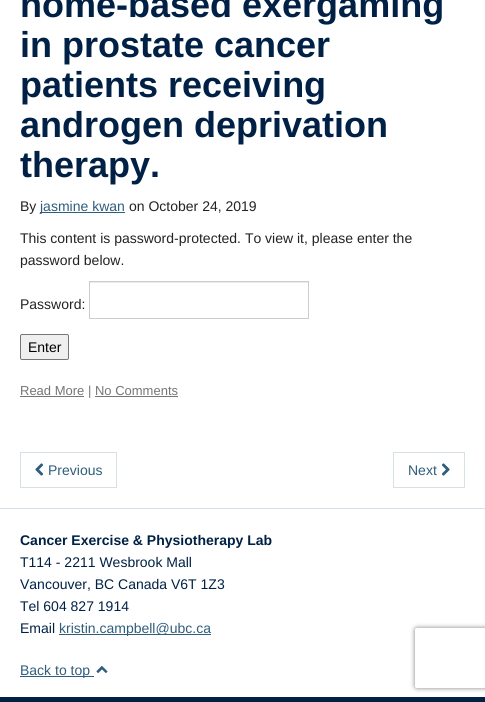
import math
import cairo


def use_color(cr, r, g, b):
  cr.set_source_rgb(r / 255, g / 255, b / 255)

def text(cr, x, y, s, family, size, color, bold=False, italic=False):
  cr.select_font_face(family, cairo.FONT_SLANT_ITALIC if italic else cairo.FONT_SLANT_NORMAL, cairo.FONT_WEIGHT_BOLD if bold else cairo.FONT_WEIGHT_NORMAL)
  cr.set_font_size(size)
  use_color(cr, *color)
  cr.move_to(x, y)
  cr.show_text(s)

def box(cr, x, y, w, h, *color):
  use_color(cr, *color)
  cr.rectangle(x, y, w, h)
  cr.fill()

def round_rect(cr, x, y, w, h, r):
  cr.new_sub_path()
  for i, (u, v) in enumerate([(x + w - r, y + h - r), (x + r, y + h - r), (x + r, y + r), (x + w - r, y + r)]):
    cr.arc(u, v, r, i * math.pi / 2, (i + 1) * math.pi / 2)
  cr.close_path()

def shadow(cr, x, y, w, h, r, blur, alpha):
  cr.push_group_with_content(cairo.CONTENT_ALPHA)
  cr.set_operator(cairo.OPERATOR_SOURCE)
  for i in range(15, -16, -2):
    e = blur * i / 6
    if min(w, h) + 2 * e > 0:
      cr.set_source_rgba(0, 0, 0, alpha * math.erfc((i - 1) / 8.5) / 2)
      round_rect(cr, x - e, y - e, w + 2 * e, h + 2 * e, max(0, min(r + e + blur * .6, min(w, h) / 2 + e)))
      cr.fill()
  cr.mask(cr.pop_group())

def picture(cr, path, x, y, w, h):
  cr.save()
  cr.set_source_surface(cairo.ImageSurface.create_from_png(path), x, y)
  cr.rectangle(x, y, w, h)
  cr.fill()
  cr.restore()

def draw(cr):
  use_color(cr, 255, 255, 255)
  cr.paint()
  box(cr, 40, 212, 85, 1, 47, 93, 124)
  box(cr, 90, 282, 218, 1, 236, 236, 236)
  cr.rectangle(89.5, 281.5, 219, 37)
  use_color(cr, 204, 204, 204)
  cr.set_line_width(1)
  cr.stroke()
  use_color(cr, 239, 239, 239)
  round_rect(cr, 20.5, 334.5, 48, 25, 1.5)
  cr.fill_preserve()
  use_color(cr, 118, 118, 118)
  cr.stroke()
  box(cr, 20, 396, 64, 1, 117, 117, 117)
  box(cr, 95, 396, 83, 1, 117, 117, 117)
  cr.rectangle(20.5, 452.5, 96, 35)
  use_color(cr, 215, 224, 231)
  cr.stroke()
  picture(cr, "img_01.png", 35, 463, 8, 13)
  cr.rectangle(393.5, 452.5, 71, 35)
  cr.stroke()
  picture(cr, "img_02.png", 442, 463, 8, 13)
  box(cr, 0, 697, 485, 5, 0, 33, 69)
  box(cr, 0, 508, 485, 1, 215, 224, 231)
  box(cr, 59, 634, 152, 1, 47, 93, 124)
  box(cr, 20, 676, 74, 1, 47, 93, 124)
  picture(cr, "img_03.png", 96, 666, 12, 7)
  cr.save()
  cr.set_fill_rule(cairo.FILL_RULE_EVEN_ODD)
  cr.new_path()
  cr.move_to(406, 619)
  cr.line_to(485, 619)
  cr.line_to(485, 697)
  cr.line_to(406, 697)
  cr.close_path()
  cr.move_to(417, 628)
  cr.line_to(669, 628)
  cr.curve_to(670, 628, 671, 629, 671, 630)
  cr.line_to(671, 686)
  cr.curve_to(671, 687, 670, 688, 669, 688)
  cr.line_to(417, 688)
  cr.curve_to(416, 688, 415, 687, 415, 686)
  cr.line_to(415, 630)
  cr.curve_to(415, 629, 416, 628, 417, 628)
  cr.close_path()
  cr.clip()
  use_color(cr, 128, 128, 128)
  shadow(cr, 415, 628, 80, 60, 2, 2.5, 1)
  cr.restore()
  text(cr, 20, 17, "home-based exergaming", "Liberation Sans", 36, (0, 33, 69), bold=True)
  text(cr, 20, 57, "in prostate cancer", "Liberation Sans", 36, (0, 33, 69), bold=True)
  text(cr, 20, 97, "patients receiving", "Liberation Sans", 36, (0, 33, 69), bold=True)
  text(cr, 20, 137, "androgen deprivation", "Liberation Sans", 36, (0, 33, 69), bold=True)
  text(cr, 20, 177, "therapy.", "Liberation Sans", 36, (0, 33, 69), bold=True)
  text(cr, 20, 211, "By", "Liberation Sans", 14, (34, 34, 34))
  text(cr, 40, 211, "jasmine kwan", "Liberation Sans", 14, (47, 93, 124))
  text(cr, 129, 211, "on October 24, 2019", "Liberation Sans", 14, (34, 34, 34))
  text(cr, 20, 243, "This content is password-protected. To view it, please enter the", "Liberation Sans", 14, (34, 34, 34))
  text(cr, 20, 265, "password below.", "Liberation Sans", 14, (34, 34, 34))
  text(cr, 20, 309, "Password:", "Liberation Sans", 14, (34, 34, 34))
  text(cr, 28, 352, "Enter", "Liberation Sans", 14, (0, 0, 0))
  text(cr, 20, 395, "Read More | No Comments", "Liberation Sans", 13, (117, 117, 117))
  text(cr, 48, 475, "Previous", "Liberation Sans", 14, (47, 93, 124))
  text(cr, 408, 475, "Next", "Liberation Sans", 14, (47, 93, 124))
  text(cr, 20, 545, "Cancer Exercise & Physiotherapy Lab", "Liberation Sans", 14, (0, 33, 69), bold=True)
  text(cr, 20, 567, "T114 - 2211 Wesbrook Mall", "Liberation Sans", 14, (0, 33, 69))
  text(cr, 20, 589, "Vancouver, BC Canada V6T 1Z3", "Liberation Sans", 14, (0, 33, 69))
  text(cr, 20, 611, "Tel 604 827 1914", "Liberation Sans", 14, (0, 33, 69))
  text(cr, 20, 633, "Email", "Liberation Sans", 14, (0, 33, 69))
  text(cr, 59, 633, "kristin.campbell@ubc.ca", "Liberation Sans", 14, (47, 93, 124))
  text(cr, 20, 675, "Back to top", "Liberation Sans", 14, (47, 93, 124))


surface = cairo.ImageSurface(cairo.FORMAT_RGB24, 485, 702)
cr = cairo.Context(surface)
options = cairo.FontOptions()
options.set_hint_metrics(cairo.HINT_METRICS_OFF)
options.set_hint_style(cairo.HINT_STYLE_NONE)
cr.set_font_options(options)
cr.set_miter_limit(4)
draw(cr)
surface.write_to_png("out.png")
